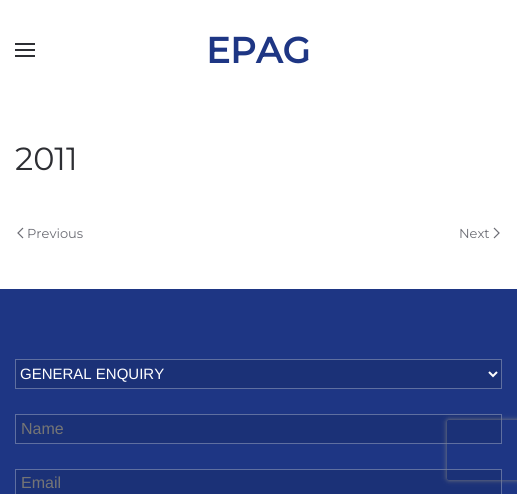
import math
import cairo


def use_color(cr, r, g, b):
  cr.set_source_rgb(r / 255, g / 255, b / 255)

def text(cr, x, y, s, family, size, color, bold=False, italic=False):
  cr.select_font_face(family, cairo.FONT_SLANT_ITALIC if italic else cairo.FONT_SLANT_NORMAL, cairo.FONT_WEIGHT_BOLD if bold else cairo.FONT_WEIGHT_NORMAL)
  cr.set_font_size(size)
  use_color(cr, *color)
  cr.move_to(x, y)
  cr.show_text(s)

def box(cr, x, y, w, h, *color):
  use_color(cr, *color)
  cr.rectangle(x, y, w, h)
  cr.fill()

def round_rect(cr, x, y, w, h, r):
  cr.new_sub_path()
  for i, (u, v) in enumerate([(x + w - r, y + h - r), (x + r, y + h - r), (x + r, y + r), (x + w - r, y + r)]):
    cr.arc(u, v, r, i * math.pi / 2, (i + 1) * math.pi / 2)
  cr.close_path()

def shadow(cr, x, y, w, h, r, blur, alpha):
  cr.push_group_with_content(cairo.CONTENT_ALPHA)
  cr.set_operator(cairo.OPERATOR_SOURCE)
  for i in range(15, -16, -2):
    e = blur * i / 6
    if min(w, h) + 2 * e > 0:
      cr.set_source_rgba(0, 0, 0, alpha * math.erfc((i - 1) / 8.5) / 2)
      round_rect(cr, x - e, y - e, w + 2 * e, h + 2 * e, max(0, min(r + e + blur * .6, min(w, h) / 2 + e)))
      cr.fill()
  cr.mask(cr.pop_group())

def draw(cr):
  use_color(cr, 255, 255, 255)
  cr.paint()
  box(cr, 15, 43, 20, 2, 45, 46, 51)
  box(cr, 15, 49, 20, 2, 45, 46, 51)
  box(cr, 15, 55, 20, 2, 45, 46, 51)
  cr.new_path()
  cr.move_to(23, 228)
  cr.line_to(18, 233)
  cr.line_to(23, 238)
  use_color(cr, 108, 109, 116)
  cr.set_line_width(1.2)
  cr.stroke()
  cr.new_path()
  cr.move_to(494, 228)
  cr.line_to(499, 233)
  cr.line_to(494, 238)
  cr.stroke()
  box(cr, 0, 289, 517, 205, 30, 54, 132)
  use_color(cr, 27, 49, 119)
  cr.rectangle(15.5, 359.5, 486, 29)
  cr.fill_preserve()
  use_color(cr, 95, 111, 160)
  cr.set_line_width(1)
  cr.stroke()
  cr.new_path()
  cr.move_to(489, 372)
  cr.line_to(493, 376)
  cr.line_to(497, 372)
  use_color(cr, 255, 255, 255)
  cr.set_line_width(2)
  cr.stroke()
  use_color(cr, 27, 49, 119)
  cr.rectangle(15.5, 414.5, 486, 29)
  cr.fill_preserve()
  use_color(cr, 95, 111, 160)
  cr.set_line_width(1)
  cr.stroke()
  use_color(cr, 27, 49, 119)
  cr.rectangle(15.5, 469.5, 486, 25)
  cr.fill_preserve()
  use_color(cr, 95, 111, 160)
  cr.stroke()
  cr.save()
  cr.set_fill_rule(cairo.FILL_RULE_EVEN_ODD)
  cr.new_path()
  cr.move_to(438, 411)
  cr.line_to(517, 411)
  cr.line_to(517, 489)
  cr.line_to(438, 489)
  cr.close_path()
  cr.move_to(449, 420)
  cr.line_to(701, 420)
  cr.curve_to(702, 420, 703, 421, 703, 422)
  cr.line_to(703, 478)
  cr.curve_to(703, 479, 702, 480, 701, 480)
  cr.line_to(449, 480)
  cr.curve_to(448, 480, 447, 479, 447, 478)
  cr.line_to(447, 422)
  cr.curve_to(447, 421, 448, 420, 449, 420)
  cr.close_path()
  cr.clip()
  use_color(cr, 128, 128, 128)
  shadow(cr, 447, 420, 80, 60, 2, 2.5, 1)
  cr.restore()
  text(cr, 206, 63, "EPAG", "Montserrat", 36, (30, 54, 132), bold=True)
  text(cr, 15, 170, "2011", "Montserrat Thin", 32, (45, 46, 51))
  text(cr, 27, 238, "Previous", "Montserrat Thin", 13, (108, 109, 116))
  text(cr, 459, 238, "Next", "Montserrat Thin", 13, (108, 109, 116))
  text(cr, 20, 379, "GENERAL ENQUIRY", "Liberation Sans", 15, (255, 255, 255))
  text(cr, 21, 434, "Name", "Liberation Sans", 16, (117, 117, 117))
  text(cr, 21, 488, "Email", "Liberation Sans", 16, (117, 117, 117))


surface = cairo.ImageSurface(cairo.FORMAT_RGB24, 517, 494)
cr = cairo.Context(surface)
options = cairo.FontOptions()
options.set_hint_metrics(cairo.HINT_METRICS_OFF)
options.set_hint_style(cairo.HINT_STYLE_NONE)
cr.set_font_options(options)
cr.set_miter_limit(4)
draw(cr)
surface.write_to_png("out.png")
